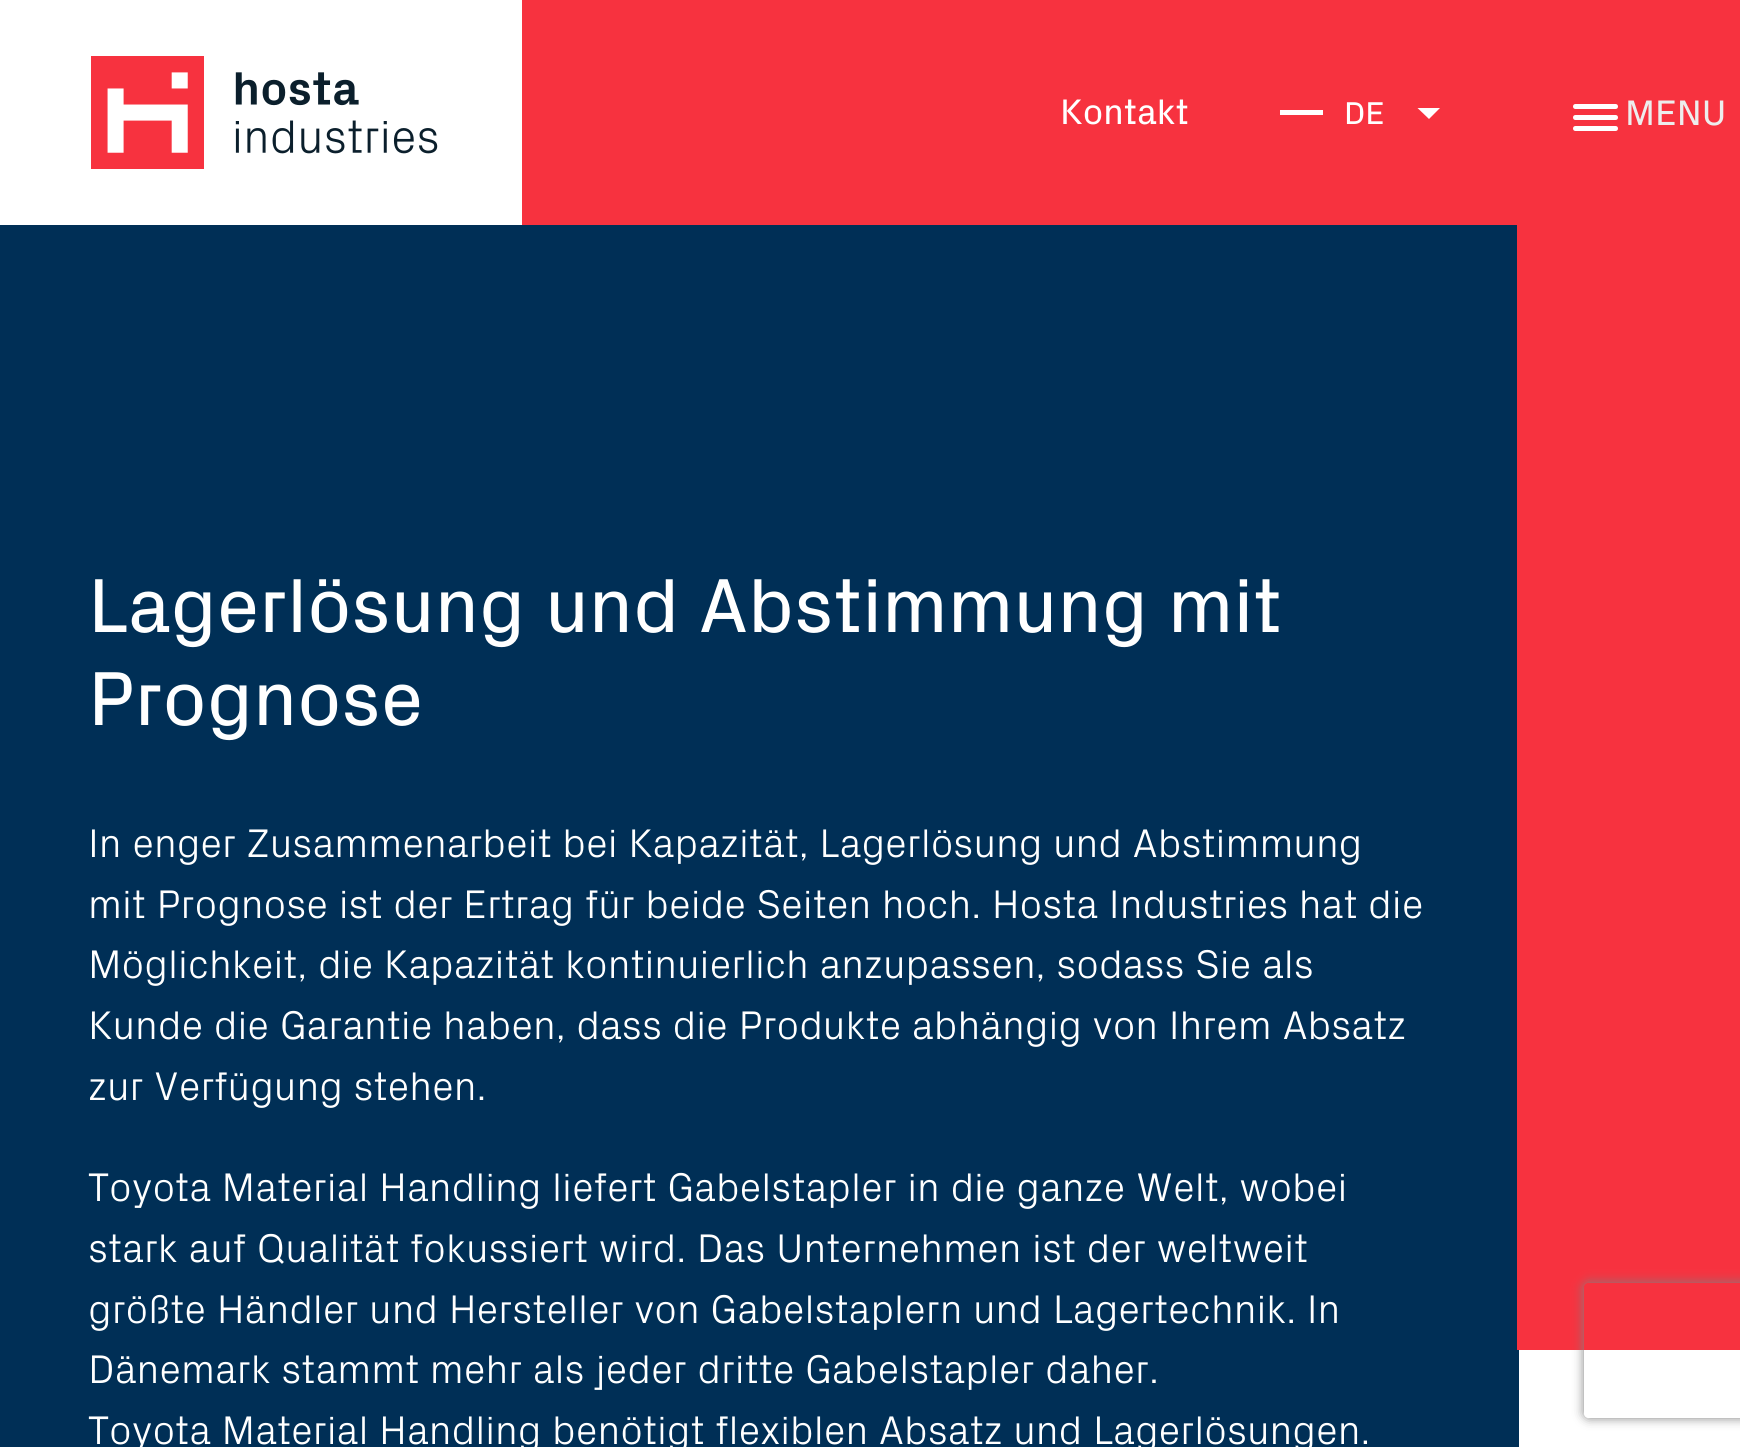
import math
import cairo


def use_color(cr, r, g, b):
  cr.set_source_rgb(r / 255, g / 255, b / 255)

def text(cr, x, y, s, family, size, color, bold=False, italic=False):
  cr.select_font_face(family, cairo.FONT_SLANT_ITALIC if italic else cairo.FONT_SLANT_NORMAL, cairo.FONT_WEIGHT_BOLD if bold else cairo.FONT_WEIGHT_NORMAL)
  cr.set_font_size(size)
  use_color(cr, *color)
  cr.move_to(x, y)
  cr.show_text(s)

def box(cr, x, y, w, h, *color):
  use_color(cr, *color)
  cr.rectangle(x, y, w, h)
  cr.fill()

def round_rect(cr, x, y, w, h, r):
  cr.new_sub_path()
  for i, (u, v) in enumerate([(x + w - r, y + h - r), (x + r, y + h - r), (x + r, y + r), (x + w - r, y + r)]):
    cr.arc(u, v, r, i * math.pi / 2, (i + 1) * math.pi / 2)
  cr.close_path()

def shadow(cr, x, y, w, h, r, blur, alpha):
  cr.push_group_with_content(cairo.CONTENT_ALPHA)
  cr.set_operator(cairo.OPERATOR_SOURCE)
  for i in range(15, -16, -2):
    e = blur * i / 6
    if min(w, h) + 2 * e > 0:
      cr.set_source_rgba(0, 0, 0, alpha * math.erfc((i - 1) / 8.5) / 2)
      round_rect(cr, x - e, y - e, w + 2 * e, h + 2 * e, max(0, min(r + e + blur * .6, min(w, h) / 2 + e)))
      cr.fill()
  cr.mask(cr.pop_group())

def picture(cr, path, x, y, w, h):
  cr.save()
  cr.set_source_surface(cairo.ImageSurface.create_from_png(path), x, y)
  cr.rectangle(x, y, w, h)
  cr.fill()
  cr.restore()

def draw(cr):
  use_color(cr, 255, 255, 255)
  cr.paint()
  box(cr, 522, 0, 995, 225, 247, 50, 63)
  box(cr, 0, 225, 1519, 1222, 0, 47, 86)
  box(cr, 1517, 0, 223, 1350, 247, 50, 63)
  picture(cr, "img_01.png", 91, 56, 347, 113)
  box(cr, 1280, 110, 43, 5, 255, 255, 255)
  cr.new_path()
  cr.move_to(1417.5, 108)
  cr.line_to(1440, 108)
  cr.line_to(1429, 119)
  cr.close_path()
  cr.fill()
  cr.new_path()
  cr.move_to(1575.5, 104)
  cr.line_to(1595, 104)
  cr.line_to(1595, 109)
  cr.line_to(1575.5, 109)
  cr.curve_to(1574, 109, 1573, 108, 1573, 106.5)
  cr.curve_to(1573, 105, 1574, 104, 1575.5, 104)
  cr.close_path()
  cr.fill()
  cr.new_path()
  cr.move_to(1595, 104)
  cr.line_to(1615.5, 104)
  cr.curve_to(1617, 104, 1618, 105, 1618, 106.5)
  cr.curve_to(1618, 108, 1617, 109, 1615.5, 109)
  cr.line_to(1595, 109)
  cr.close_path()
  cr.fill()
  cr.new_path()
  cr.move_to(1575.5, 115)
  cr.line_to(1595, 115)
  cr.line_to(1595, 120)
  cr.line_to(1575.5, 120)
  cr.curve_to(1574, 120, 1573, 119, 1573, 117.5)
  cr.curve_to(1573, 116, 1574, 115, 1575.5, 115)
  cr.close_path()
  cr.fill()
  cr.new_path()
  cr.move_to(1595, 115)
  cr.line_to(1615.5, 115)
  cr.curve_to(1617, 115, 1618, 116, 1618, 117.5)
  cr.curve_to(1618, 119, 1617, 120, 1615.5, 120)
  cr.line_to(1595, 120)
  cr.close_path()
  cr.fill()
  cr.new_path()
  cr.move_to(1575.5, 126)
  cr.line_to(1595, 126)
  cr.line_to(1595, 131)
  cr.line_to(1575.5, 131)
  cr.curve_to(1574, 131, 1573, 130, 1573, 128.5)
  cr.curve_to(1573, 127, 1574, 126, 1575.5, 126)
  cr.close_path()
  cr.fill()
  cr.new_path()
  cr.move_to(1595, 126)
  cr.line_to(1615.5, 126)
  cr.curve_to(1617, 126, 1618, 127, 1618, 128.5)
  cr.curve_to(1618, 130, 1617, 131, 1615.5, 131)
  cr.line_to(1595, 131)
  cr.close_path()
  cr.fill()
  cr.save()
  cr.set_fill_rule(cairo.FILL_RULE_EVEN_ODD)
  cr.new_path()
  cr.move_to(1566, 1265)
  cr.line_to(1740, 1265)
  cr.line_to(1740, 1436)
  cr.line_to(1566, 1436)
  cr.close_path()
  cr.move_to(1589, 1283)
  cr.line_to(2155, 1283)
  cr.curve_to(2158, 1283, 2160, 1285, 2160, 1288)
  cr.line_to(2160, 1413)
  cr.curve_to(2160, 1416, 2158, 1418, 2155, 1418)
  cr.line_to(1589, 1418)
  cr.curve_to(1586, 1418, 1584, 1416, 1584, 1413)
  cr.line_to(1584, 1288)
  cr.curve_to(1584, 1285, 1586, 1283, 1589, 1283)
  cr.close_path()
  cr.clip()
  use_color(cr, 128, 128, 128)
  shadow(cr, 1584, 1283, 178, 135, 5, 5.5, 1)
  cr.restore()
  text(cr, 1060, 124, "Kontakt", "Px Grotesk", 36, (255, 255, 255))
  text(cr, 1344, 124, "DE", "Px Grotesk", 32, (255, 255, 255))
  text(cr, 1625, 125, "MENU", "Px Grotesk", 36, (237, 237, 237))
  text(cr, 88, 632, "Lagerlösung und Abstimmung mit", "Px Grotesk", 77.6, (255, 255, 255))
  text(cr, 88, 725, "Prognose", "Px Grotesk", 77.6, (255, 255, 255))
  text(cr, 88, 857, "In enger Zusammenarbeit bei Kapazität, Lagerlösung und Abstimmung", "Px Grotesk Light", 40.5, (255, 255, 255))
  text(cr, 88, 918, "mit Prognose ist der Ertrag für beide Seiten hoch. Hosta Industries hat die", "Px Grotesk Light", 40.5, (255, 255, 255))
  text(cr, 88, 978, "Möglichkeit, die Kapazität kontinuierlich anzupassen, sodass Sie als", "Px Grotesk Light", 40.5, (255, 255, 255))
  text(cr, 88, 1039, "Kunde die Garantie haben, dass die Produkte abhängig von Ihrem Absatz", "Px Grotesk Light", 40.5, (255, 255, 255))
  text(cr, 88, 1100, "zur Verfügung stehen.", "Px Grotesk Light", 40.5, (255, 255, 255))
  text(cr, 88, 1201, "Toyota Material Handling liefert Gabelstapler in die ganze Welt, wobei", "Px Grotesk Light", 40.5, (255, 255, 255))
  text(cr, 88, 1262, "stark auf Qualität fokussiert wird. Das Unternehmen ist der weltweit", "Px Grotesk Light", 40.5, (255, 255, 255))
  text(cr, 88, 1323, "größte Händler und Hersteller von Gabelstaplern und Lagertechnik. In", "Px Grotesk Light", 40.5, (255, 255, 255))
  text(cr, 88, 1383, "Dänemark stammt mehr als jeder dritte Gabelstapler daher.", "Px Grotesk Light", 40.5, (255, 255, 255))
  text(cr, 88, 1444, "Toyota Material Handling benötigt flexiblen Absatz und Lagerlösungen.", "Px Grotesk Light", 40.5, (255, 255, 255))


surface = cairo.ImageSurface(cairo.FORMAT_RGB24, 1740, 1447)
cr = cairo.Context(surface)
options = cairo.FontOptions()
options.set_hint_metrics(cairo.HINT_METRICS_OFF)
options.set_hint_style(cairo.HINT_STYLE_NONE)
cr.set_font_options(options)
cr.set_miter_limit(4)
draw(cr)
surface.write_to_png("out.png")
